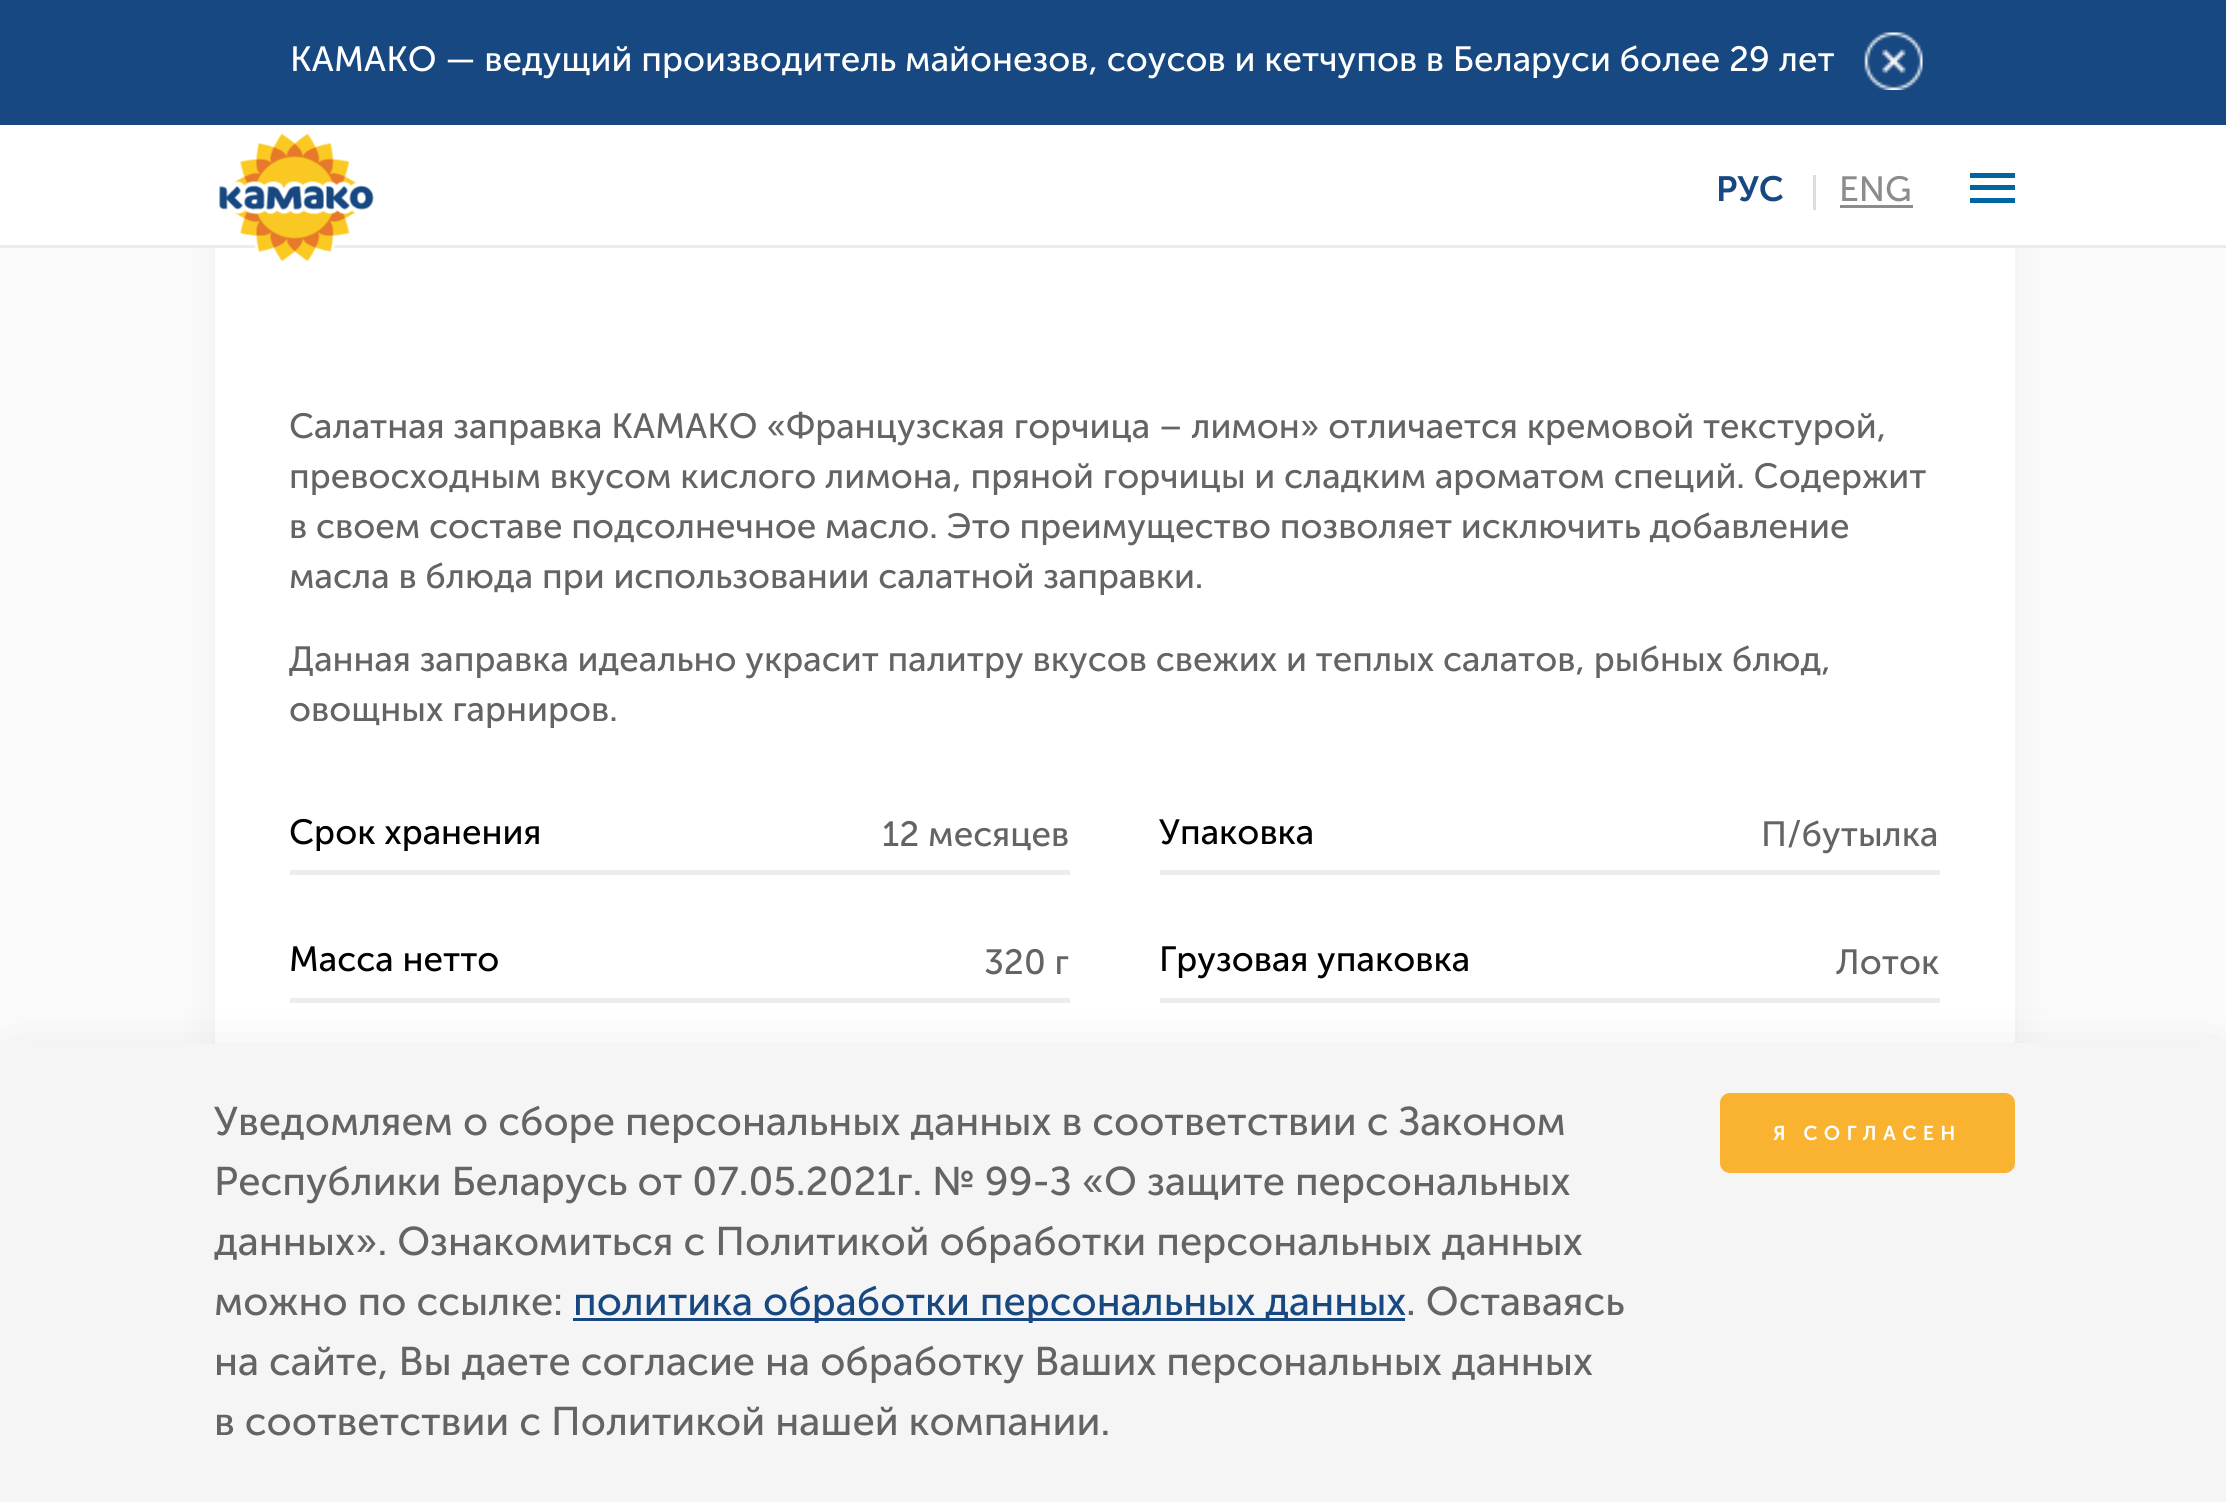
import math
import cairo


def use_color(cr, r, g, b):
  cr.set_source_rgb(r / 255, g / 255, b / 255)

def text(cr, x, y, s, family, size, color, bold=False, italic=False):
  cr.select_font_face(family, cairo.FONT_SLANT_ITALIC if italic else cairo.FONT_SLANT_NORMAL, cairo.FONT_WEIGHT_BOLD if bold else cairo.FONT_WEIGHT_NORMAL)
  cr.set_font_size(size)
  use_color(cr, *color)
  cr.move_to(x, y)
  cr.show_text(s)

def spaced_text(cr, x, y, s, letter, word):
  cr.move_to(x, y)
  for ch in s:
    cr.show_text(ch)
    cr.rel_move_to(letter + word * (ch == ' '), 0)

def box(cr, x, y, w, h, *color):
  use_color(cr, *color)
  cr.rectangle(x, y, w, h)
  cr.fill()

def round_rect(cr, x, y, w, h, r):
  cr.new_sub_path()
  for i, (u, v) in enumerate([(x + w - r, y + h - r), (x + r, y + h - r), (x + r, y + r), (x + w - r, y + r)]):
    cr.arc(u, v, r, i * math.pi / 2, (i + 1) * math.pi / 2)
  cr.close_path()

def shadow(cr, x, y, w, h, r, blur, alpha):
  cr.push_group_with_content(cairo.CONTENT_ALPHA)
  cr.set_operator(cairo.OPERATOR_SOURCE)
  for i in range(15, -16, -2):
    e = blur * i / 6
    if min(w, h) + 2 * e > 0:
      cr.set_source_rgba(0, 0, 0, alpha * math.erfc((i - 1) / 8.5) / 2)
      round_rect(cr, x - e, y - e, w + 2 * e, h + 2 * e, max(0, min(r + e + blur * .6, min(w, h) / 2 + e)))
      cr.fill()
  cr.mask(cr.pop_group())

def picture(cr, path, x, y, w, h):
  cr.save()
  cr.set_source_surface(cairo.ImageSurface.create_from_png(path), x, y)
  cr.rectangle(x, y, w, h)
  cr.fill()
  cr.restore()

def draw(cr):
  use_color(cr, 251, 251, 251)
  cr.paint()
  use_color(cr, 0, 0, 0)
  shadow(cr, 215, -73, 1800, 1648, 13, 20, 0.05)
  box(cr, 0, 125, 2226, 120, 255, 255, 255)
  box(cr, 0, 245, 2226, 3, 236, 236, 236)
  box(cr, 0, 0, 2226, 125, 23, 72, 129)
  picture(cr, "img_01.png", 1864, 32, 59, 58)
  box(cr, 215, 248, 1800, 795, 255, 255, 255)
  picture(cr, "img_02.png", 219, 133, 155, 129)
  box(cr, 1813, 175, 3, 35, 221, 221, 221)
  box(cr, 1840, 205, 73, 3, 140, 140, 140)
  box(cr, 1970, 185, 45, 5, 0, 102, 161)
  box(cr, 1970, 173, 45, 5, 0, 102, 161)
  box(cr, 1970, 198, 45, 5, 0, 102, 161)
  box(cr, 290, 870, 780, 5, 237, 237, 237)
  box(cr, 1160, 870, 780, 5, 237, 237, 237)
  box(cr, 290, 998, 780, 5, 237, 237, 237)
  box(cr, 1160, 998, 780, 5, 237, 237, 237)
  use_color(cr, 0, 0, 0)
  shadow(cr, 13, 1068, 2202, 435, 0, 31, 0.15)
  box(cr, 0, 1043, 2226, 459, 245, 245, 245)
  box(cr, 573, 1318, 832, 3, 23, 72, 129)
  use_color(cr, 250, 179, 48)
  round_rect(cr, 1720, 1093, 295, 80, 10)
  cr.fill()
  text(cr, 290, 71, "КАМАКО — ведущий производитель майонезов, соусов и кетчупов в Беларуси более 29 лет", "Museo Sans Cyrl", 35, (255, 255, 255))
  text(cr, 1716, 201, "РУС", "Museo Sans Cyrl SemiBold", 35, (23, 72, 129))
  text(cr, 1839, 201, "ENG", "Museo Sans Cyrl", 35, (140, 140, 140))
  text(cr, 289, 438, "Салатная заправка КАМАКО «Французская горчица – лимон» отличается кремовой текстурой,", "Museo Sans Cyrl", 35, (101, 100, 100))
  text(cr, 289, 488, "превосходным вкусом кислого лимона, пряной горчицы и сладким ароматом специй. Содержит", "Museo Sans Cyrl", 35, (101, 100, 100))
  text(cr, 289, 538, "в своем составе подсолнечное масло. Это преимущество позволяет исключить добавление", "Museo Sans Cyrl", 35, (101, 100, 100))
  text(cr, 289, 588, "масла в блюда при использовании салатной заправки.", "Museo Sans Cyrl", 35, (101, 100, 100))
  text(cr, 289, 671, "Данная заправка идеально украсит палитру вкусов свежих и теплых салатов, рыбных блюд,", "Museo Sans Cyrl", 35, (101, 100, 100))
  text(cr, 289, 721, "овощных гарниров.", "Museo Sans Cyrl", 35, (101, 100, 100))
  text(cr, 289, 844, "Срок хранения", "Museo Sans Cyrl", 35, (0, 0, 0))
  text(cr, 882, 846, "12 месяцев", "Museo Sans Cyrl", 35, (101, 100, 100))
  text(cr, 1159, 844, "Упаковка", "Museo Sans Cyrl", 35, (0, 0, 0))
  text(cr, 1761, 846, "П/бутылка", "Museo Sans Cyrl", 35, (101, 100, 100))
  text(cr, 289, 971, "Масса нетто", "Museo Sans Cyrl", 35, (0, 0, 0))
  text(cr, 984, 974, "320 г", "Museo Sans Cyrl", 35, (101, 100, 100))
  text(cr, 1159, 971, "Грузовая упаковка", "Museo Sans Cyrl", 35, (0, 0, 0))
  text(cr, 1836, 974, "Лоток", "Museo Sans Cyrl", 35, (101, 100, 100))
  text(cr, 214, 1135, "Уведомляем о сборе персональных данных в соответствии с Законом", "Museo Sans Cyrl", 40, (101, 100, 100))
  text(cr, 214, 1195, "Республики Беларусь от 07.05.2021г. № 99-З «О защите персональных", "Museo Sans Cyrl", 40, (101, 100, 100))
  text(cr, 214, 1255, "данных». Ознакомиться с Политикой обработки персональных данных", "Museo Sans Cyrl", 40, (101, 100, 100))
  text(cr, 214, 1315, "можно по ссылке:", "Museo Sans Cyrl", 40, (101, 100, 100))
  text(cr, 573, 1315, "политика обработки персональных данных", "Museo Sans Cyrl", 40, (23, 72, 129))
  text(cr, 1406, 1315, ". Оставаясь", "Museo Sans Cyrl", 40, (101, 100, 100))
  text(cr, 214, 1375, "на сайте, Вы даете согласие на обработку Ваших персональных данных", "Museo Sans Cyrl", 40, (101, 100, 100))
  text(cr, 214, 1435, "в соответствии с Политикой нашей компании.", "Museo Sans Cyrl", 40, (101, 100, 100))
  cr.select_font_face("Museo Sans Cyrl SemiBold")
  cr.set_font_size(20)
  use_color(cr, 255, 255, 255)
  spaced_text(cr, 1773, 1140, "Я СОГЛАСЕН", 6.25, 0)


surface = cairo.ImageSurface(cairo.FORMAT_RGB24, 2226, 1502)
cr = cairo.Context(surface)
options = cairo.FontOptions()
options.set_hint_metrics(cairo.HINT_METRICS_OFF)
options.set_hint_style(cairo.HINT_STYLE_NONE)
cr.set_font_options(options)
cr.set_miter_limit(4)
draw(cr)
surface.write_to_png("out.png")
